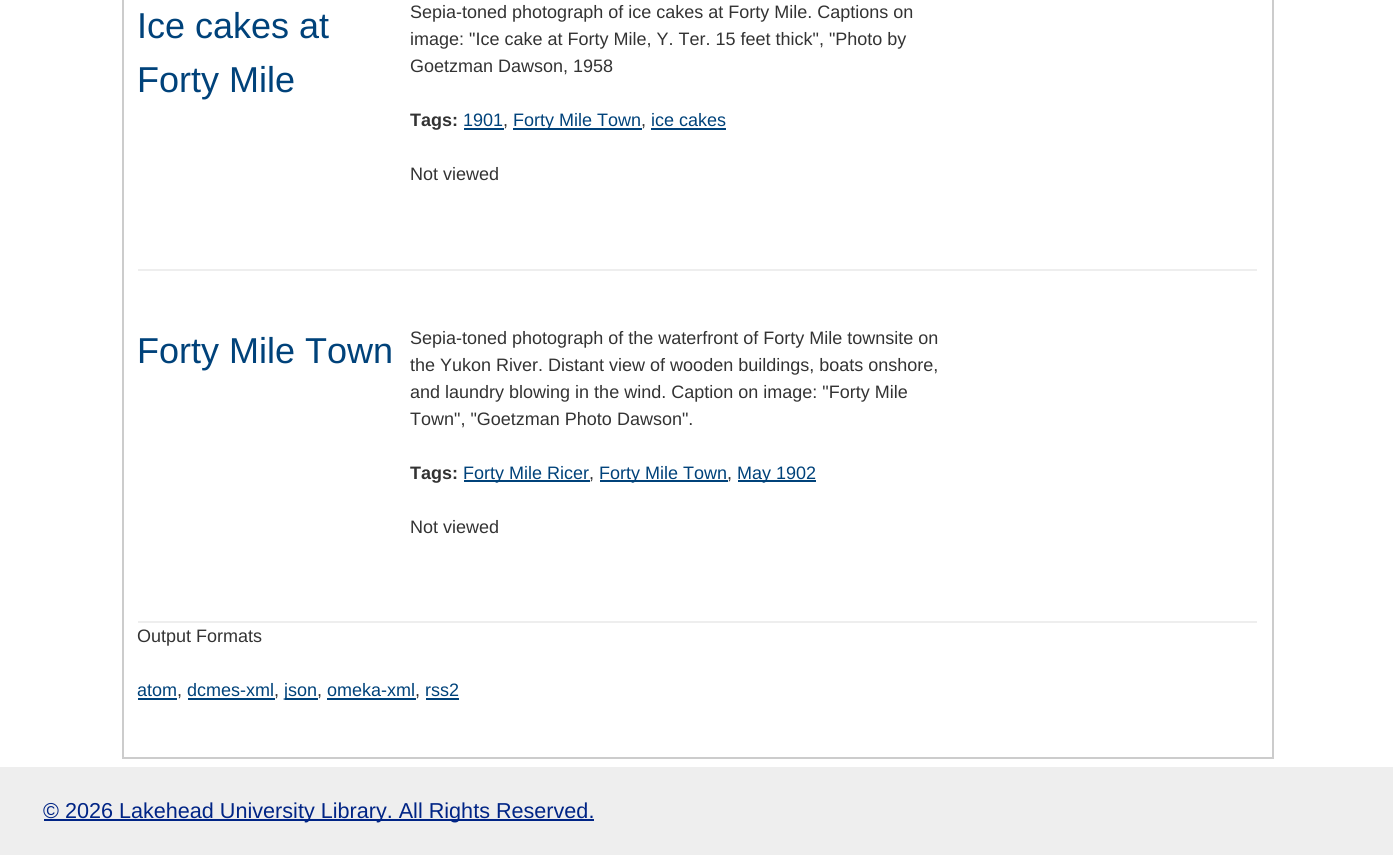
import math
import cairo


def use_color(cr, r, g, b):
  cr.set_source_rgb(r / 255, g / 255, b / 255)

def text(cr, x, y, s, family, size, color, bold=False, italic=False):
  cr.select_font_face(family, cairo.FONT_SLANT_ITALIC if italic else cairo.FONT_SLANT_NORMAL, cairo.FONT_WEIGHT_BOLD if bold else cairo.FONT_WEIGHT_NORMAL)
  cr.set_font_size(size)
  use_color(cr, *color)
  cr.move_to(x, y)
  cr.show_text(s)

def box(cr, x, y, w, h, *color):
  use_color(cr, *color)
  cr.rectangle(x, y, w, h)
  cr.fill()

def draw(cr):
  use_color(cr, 255, 255, 255)
  cr.paint()
  cr.rectangle(123, -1, 1150, 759)
  use_color(cr, 204, 204, 204)
  cr.stroke()
  box(cr, 138, 269, 1119, 2, 238, 238, 238)
  box(cr, 464, 128, 40, 2, 0, 66, 122)
  box(cr, 513, 128, 129, 2, 0, 66, 122)
  box(cr, 651, 128, 75, 2, 0, 66, 122)
  box(cr, 138, 621, 1119, 2, 238, 238, 238)
  box(cr, 464, 480, 126, 2, 0, 66, 122)
  box(cr, 600, 480, 128, 2, 0, 66, 122)
  box(cr, 738, 480, 78, 2, 0, 66, 122)
  box(cr, 138, 698, 39, 2, 0, 66, 122)
  box(cr, 188, 698, 87, 2, 0, 66, 122)
  box(cr, 285, 698, 33, 2, 0, 66, 122)
  box(cr, 327, 698, 89, 2, 0, 66, 122)
  box(cr, 426, 698, 33, 2, 0, 66, 122)
  box(cr, 0, 767, 1393, 88, 238, 238, 238)
  box(cr, 44, 819, 550, 2, 0, 36, 133)
  text(cr, 137, 38, "Ice cakes at", "Liberation Sans", 36, (0, 66, 122))
  text(cr, 137, 92, "Forty Mile", "Liberation Sans", 36, (0, 66, 122))
  text(cr, 410, 18, "Sepia-toned photograph of ice cakes at Forty Mile. Captions on", "Liberation Sans", 18, (51, 51, 51))
  text(cr, 410, 45, "image: \"Ice cake at Forty Mile, Y. Ter. 15 feet thick\", \"Photo by", "Liberation Sans", 18, (51, 51, 51))
  text(cr, 410, 72, "Goetzman Dawson, 1958", "Liberation Sans", 18, (51, 51, 51))
  text(cr, 410, 126, "Tags:", "Liberation Sans", 18, (51, 51, 51), bold=True)
  text(cr, 463, 126, "1901", "Liberation Sans", 18, (0, 66, 122))
  text(cr, 503, 126, ",", "Liberation Sans", 18, (51, 51, 51))
  text(cr, 513, 126, "Forty Mile Town", "Liberation Sans", 18, (0, 66, 122))
  text(cr, 641, 126, ",", "Liberation Sans", 18, (51, 51, 51))
  text(cr, 651, 126, "ice cakes", "Liberation Sans", 18, (0, 66, 122))
  text(cr, 410, 180, "Not viewed", "Liberation Sans", 18, (51, 51, 51))
  text(cr, 137, 363, "Forty Mile Town", "Liberation Sans", 36, (0, 66, 122))
  text(cr, 410, 344, "Sepia-toned photograph of the waterfront of Forty Mile townsite on", "Liberation Sans", 18, (51, 51, 51))
  text(cr, 410, 371, "the Yukon River. Distant view of wooden buildings, boats onshore,", "Liberation Sans", 18, (51, 51, 51))
  text(cr, 410, 398, "and laundry blowing in the wind. Caption on image: \"Forty Mile", "Liberation Sans", 18, (51, 51, 51))
  text(cr, 410, 425, "Town\", \"Goetzman Photo Dawson\".", "Liberation Sans", 18, (51, 51, 51))
  text(cr, 410, 479, "Tags:", "Liberation Sans", 18, (51, 51, 51), bold=True)
  text(cr, 463, 479, "Forty Mile Ricer", "Liberation Sans", 18, (0, 66, 122))
  text(cr, 589, 479, ",", "Liberation Sans", 18, (51, 51, 51))
  text(cr, 599, 479, "Forty Mile Town", "Liberation Sans", 18, (0, 66, 122))
  text(cr, 727, 479, ",", "Liberation Sans", 18, (51, 51, 51))
  text(cr, 737, 479, "May 1902", "Liberation Sans", 18, (0, 66, 122))
  text(cr, 410, 533, "Not viewed", "Liberation Sans", 18, (51, 51, 51))
  text(cr, 137, 642, "Output Formats", "Liberation Sans", 18, (51, 51, 51))
  text(cr, 137, 696, "atom", "Liberation Sans", 18, (0, 66, 122))
  text(cr, 177, 696, ",", "Liberation Sans", 18, (51, 51, 51))
  text(cr, 187, 696, "dcmes-xml", "Liberation Sans", 18, (0, 66, 122))
  text(cr, 274, 696, ",", "Liberation Sans", 18, (51, 51, 51))
  text(cr, 284, 696, "json", "Liberation Sans", 18, (0, 66, 122))
  text(cr, 317, 696, ",", "Liberation Sans", 18, (51, 51, 51))
  text(cr, 327, 696, "omeka-xml", "Liberation Sans", 18, (0, 66, 122))
  text(cr, 415, 696, ",", "Liberation Sans", 18, (51, 51, 51))
  text(cr, 425, 696, "rss2", "Liberation Sans", 18, (0, 66, 122))
  text(cr, 43, 818, "© 2026 Lakehead University Library. All Rights Reserved.", "Liberation Sans", 21.6, (0, 36, 133))


surface = cairo.ImageSurface(cairo.FORMAT_RGB24, 1393, 855)
cr = cairo.Context(surface)
options = cairo.FontOptions()
options.set_hint_metrics(cairo.HINT_METRICS_OFF)
options.set_hint_style(cairo.HINT_STYLE_NONE)
cr.set_font_options(options)
cr.set_miter_limit(4)
draw(cr)
surface.write_to_png("out.png")
